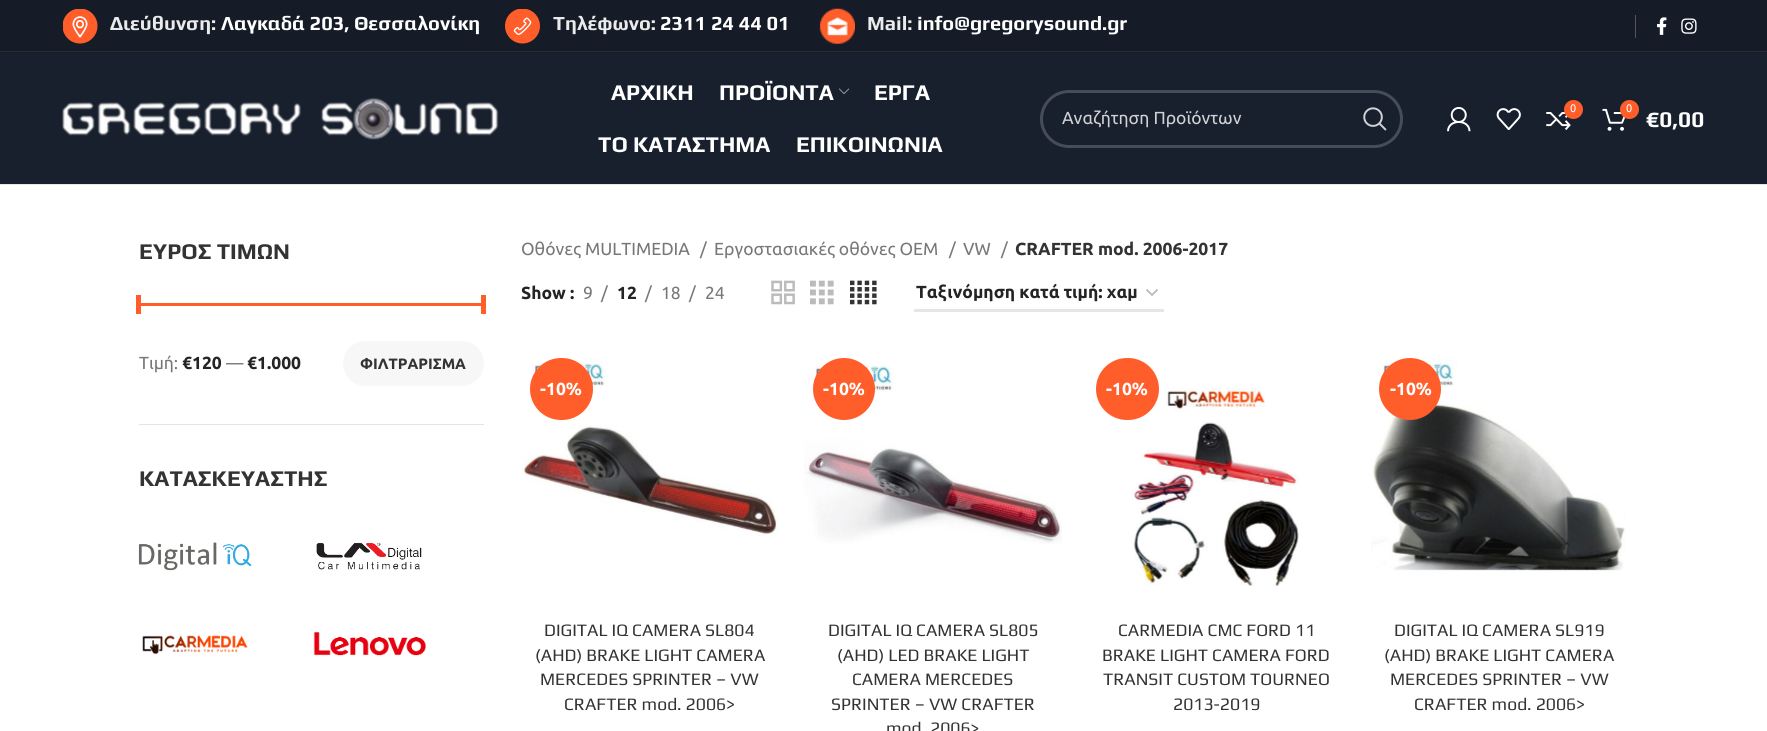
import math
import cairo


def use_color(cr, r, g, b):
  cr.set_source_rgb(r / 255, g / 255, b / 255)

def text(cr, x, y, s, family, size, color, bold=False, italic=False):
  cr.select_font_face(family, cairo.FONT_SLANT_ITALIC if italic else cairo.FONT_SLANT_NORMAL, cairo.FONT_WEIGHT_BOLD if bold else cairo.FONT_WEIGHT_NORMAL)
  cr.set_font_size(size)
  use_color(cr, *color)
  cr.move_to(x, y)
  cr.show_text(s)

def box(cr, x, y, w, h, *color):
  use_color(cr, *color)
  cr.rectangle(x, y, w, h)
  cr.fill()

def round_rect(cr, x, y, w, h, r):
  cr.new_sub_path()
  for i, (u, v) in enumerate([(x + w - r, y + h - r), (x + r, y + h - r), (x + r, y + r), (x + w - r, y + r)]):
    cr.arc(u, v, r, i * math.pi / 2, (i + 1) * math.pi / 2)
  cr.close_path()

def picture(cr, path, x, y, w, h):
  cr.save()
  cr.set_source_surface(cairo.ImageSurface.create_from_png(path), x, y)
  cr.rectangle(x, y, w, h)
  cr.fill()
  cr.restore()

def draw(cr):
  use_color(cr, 255, 255, 255)
  cr.paint()
  box(cr, 0, 0, 1767, 53, 21, 28, 40)
  box(cr, 0, 51, 1767, 1, 43, 48, 56)
  picture(cr, "img_01.png", 63, 9, 35, 35)
  picture(cr, "img_02.png", 505, 9, 35, 35)
  picture(cr, "img_03.png", 819, 8, 36, 36)
  box(cr, 1635, 15, 1, 23, 80, 85, 94)
  picture(cr, "img_04.png", 1657, 17, 10, 18)
  picture(cr, "img_05.png", 1681, 18, 16, 16)
  box(cr, 0, 53, 1767, 131, 24, 32, 46)
  box(cr, 0, 184, 1767, 1, 232, 232, 232)
  picture(cr, "img_06.png", 62, 98, 437, 42)
  picture(cr, "img_07.png", 839, 88, 11, 6)
  round_rect(cr, 1041.5, 91.5, 360, 55, 27.5)
  use_color(cr, 70, 77, 88)
  cr.set_line_width(3)
  cr.stroke()
  picture(cr, "img_08.png", 1363, 107, 24, 24)
  picture(cr, "img_09.png", 1447, 107, 24, 25)
  picture(cr, "img_10.png", 1496, 108, 25, 22)
  picture(cr, "img_11.png", 1546, 109, 25, 21)
  use_color(cr, 255, 94, 43)
  cr.arc(1573.5, 109.5, 9.5, 0, 2 * math.pi)
  cr.fill()
  picture(cr, "img_12.png", 1602, 108, 24, 23)
  cr.arc(1629.5, 109.5, 9.5, 0, 2 * math.pi)
  cr.fill()
  box(cr, 139, 424, 345, 1, 228, 228, 228)
  box(cr, 139, 303, 345, 3, 255, 94, 43)
  box(cr, 136, 295, 5, 19, 255, 94, 43)
  box(cr, 481, 295, 5, 19, 255, 94, 43)
  use_color(cr, 247, 247, 247)
  round_rect(cr, 343, 341, 141, 45, 22.5)
  cr.fill()
  picture(cr, "img_13.png", 138, 542, 114, 29)
  picture(cr, "img_14.png", 316, 542, 106, 28)
  picture(cr, "img_15.png", 142, 635, 106, 20)
  picture(cr, "img_16.png", 313, 631, 114, 25)
  picture(cr, "img_17.png", 771, 280, 24, 25)
  picture(cr, "img_18.png", 810, 280, 24, 25)
  picture(cr, "img_19.png", 850, 280, 27, 25)
  cr.new_path()
  cr.move_to(1146.5, 289.5)
  cr.line_to(1152, 295)
  cr.line_to(1157.5, 289.5)
  use_color(cr, 187, 187, 187)
  cr.set_line_width(1.8)
  cr.stroke()
  box(cr, 914, 309, 250, 3, 230, 230, 230)
  picture(cr, "img_20.png", 521, 358, 257, 178)
  use_color(cr, 255, 94, 43)
  round_rect(cr, 530, 358, 63, 62, 31)
  cr.fill()
  picture(cr, "img_21.png", 804, 365, 258, 179)
  cr.arc(844, 389, 31, 0, 2 * math.pi)
  cr.fill()
  picture(cr, "img_22.png", 1133, 387, 166, 199)
  round_rect(cr, 1096, 358, 63, 62, 31)
  cr.fill()
  picture(cr, "img_23.png", 1371, 358, 255, 213)
  cr.arc(1410, 389, 31, 0, 2 * math.pi)
  cr.fill()
  text(cr, 110, 30, "Διεύθυνση:", "Play", 20, (235, 235, 235), bold=True)
  text(cr, 221, 30, "Λαγκαδά 203, Θεσσαλονίκη", "Play", 20, (255, 255, 255), bold=True)
  text(cr, 553, 30, "Τηλέφωνο:", "Play", 20, (235, 235, 235), bold=True)
  text(cr, 660, 30, "2311 24 44 01", "Play", 20, (255, 255, 255), bold=True)
  text(cr, 867, 30, "Mail:", "Play", 20, (235, 235, 235), bold=True)
  text(cr, 917, 30, "info@gregorysound.gr", "Play", 20, (255, 255, 255), bold=True)
  text(cr, 611, 100, "ΑΡΧΙΚΗ", "Play", 22.5, (255, 255, 255), bold=True)
  text(cr, 719, 100, "ΠΡΟΪΟΝΤΑ", "Play", 22.5, (255, 255, 255), bold=True)
  text(cr, 874, 100, "ΕΡΓΑ", "Play", 22.5, (255, 255, 255), bold=True)
  text(cr, 598, 152, "ΤΟ ΚΑΤΑΣΤΗΜΑ", "Play", 22.5, (255, 255, 255), bold=True)
  text(cr, 796, 152, "ΕΠΙΚΟΙΝΩΝΙΑ", "Play", 22.5, (255, 255, 255), bold=True)
  text(cr, 1062, 124, "Αναζήτηση Προϊόντων", "Ubuntu", 17.5, (209, 210, 213))
  text(cr, 1570, 112, "0", "Ubuntu", 11, (255, 255, 255))
  text(cr, 1626, 112, "0", "Ubuntu", 11, (255, 255, 255))
  text(cr, 1646, 127, "€0,00", "Play", 22.5, (255, 255, 255), bold=True)
  text(cr, 139, 259, "ΕΥΡΟΣ ΤΙΜΩΝ", "Play", 22.5, (51, 51, 51), bold=True)
  text(cr, 139, 369, "Τιμή:", "Ubuntu", 17.5, (119, 119, 119))
  text(cr, 182, 369, "€120", "Ubuntu", 17.5, (36, 36, 36), bold=True)
  text(cr, 226, 369, "—", "Ubuntu", 17.5, (119, 119, 119))
  text(cr, 247, 369, "€1.000", "Ubuntu", 17.5, (36, 36, 36), bold=True)
  text(cr, 360, 369, "ΦΙΛΤΡΑΡΙΣΜΑ", "Ubuntu", 15, (51, 51, 51), bold=True)
  text(cr, 139, 486, "ΚΑΤΑΣΚΕΥΑΣΤΗΣ", "Play", 22.5, (51, 51, 51), bold=True)
  text(cr, 521, 255, "Οθόνες MULTIMEDIA", "Ubuntu", 17.5, (119, 119, 119))
  text(cr, 700, 255, "/", "Ubuntu", 17.5, (119, 119, 119))
  text(cr, 714, 255, "Εργοστασιακές οθόνες OEM", "Ubuntu", 17.5, (119, 119, 119))
  text(cr, 949, 255, "/", "Ubuntu", 17.5, (119, 119, 119))
  text(cr, 963, 255, "VW", "Ubuntu", 17.5, (119, 119, 119))
  text(cr, 1001, 255, "/", "Ubuntu", 17.5, (119, 119, 119))
  text(cr, 1015, 255, "CRAFTER mod. 2006-2017", "Ubuntu", 17.5, (51, 51, 51), bold=True)
  text(cr, 521, 299, "Show :", "Ubuntu", 17.5, (36, 36, 36), bold=True)
  text(cr, 583, 299, "9", "Ubuntu", 17.5, (119, 119, 119))
  text(cr, 601, 299, "/", "Ubuntu", 17.5, (119, 119, 119))
  text(cr, 617, 299, "12", "Ubuntu", 17.5, (36, 36, 36), bold=True)
  text(cr, 645, 299, "/", "Ubuntu", 17.5, (119, 119, 119))
  text(cr, 661, 299, "18", "Ubuntu", 17.5, (119, 119, 119))
  text(cr, 689, 299, "/", "Ubuntu", 17.5, (119, 119, 119))
  text(cr, 705, 299, "24", "Ubuntu", 17.5, (119, 119, 119))
  text(cr, 916, 298, "Ταξινόμηση κατά τιμή: χαμ", "Ubuntu", 17.5, (36, 36, 36), bold=True)
  text(cr, 540, 395, "-10%", "Ubuntu", 17.5, (255, 255, 255), bold=True)
  text(cr, 544, 636, "DIGITAL IQ CAMERA SL804", "Play", 17.5, (51, 51, 51))
  text(cr, 535, 661, "(AHD) BRAKE LIGHT CAMERA", "Play", 17.5, (51, 51, 51))
  text(cr, 540, 685, "MERCEDES SPRINTER – VW", "Play", 17.5, (51, 51, 51))
  text(cr, 564, 710, "CRAFTER mod. 2006>", "Play", 17.5, (51, 51, 51))
  text(cr, 823, 395, "-10%", "Ubuntu", 17.5, (255, 255, 255), bold=True)
  text(cr, 828, 636, "DIGITAL IQ CAMERA SL805", "Play", 17.5, (51, 51, 51))
  text(cr, 837, 661, "(AHD) LED BRAKE LIGHT", "Play", 17.5, (51, 51, 51))
  text(cr, 852, 685, "CAMERA MERCEDES", "Play", 17.5, (51, 51, 51))
  text(cr, 831, 710, "SPRINTER – VW CRAFTER", "Play", 17.5, (51, 51, 51))
  text(cr, 886, 734, "mod. 2006>", "Play", 17.5, (51, 51, 51))
  text(cr, 1106, 395, "-10%", "Ubuntu", 17.5, (255, 255, 255), bold=True)
  text(cr, 1118, 636, "CARMEDIA CMC FORD 11", "Play", 17.5, (51, 51, 51))
  text(cr, 1102, 661, "BRAKE LIGHT CAMERA FORD", "Play", 17.5, (51, 51, 51))
  text(cr, 1103, 685, "TRANSIT CUSTOM TOURNEO", "Play", 17.5, (51, 51, 51))
  text(cr, 1173, 710, "2013-2019", "Play", 17.5, (51, 51, 51))
  text(cr, 1390, 395, "-10%", "Ubuntu", 17.5, (255, 255, 255), bold=True)
  text(cr, 1394, 636, "DIGITAL IQ CAMERA SL919", "Play", 17.5, (51, 51, 51))
  text(cr, 1384, 661, "(AHD) BRAKE LIGHT CAMERA", "Play", 17.5, (51, 51, 51))
  text(cr, 1390, 685, "MERCEDES SPRINTER – VW", "Play", 17.5, (51, 51, 51))
  text(cr, 1414, 710, "CRAFTER mod. 2006>", "Play", 17.5, (51, 51, 51))


surface = cairo.ImageSurface(cairo.FORMAT_RGB24, 1767, 731)
cr = cairo.Context(surface)
options = cairo.FontOptions()
options.set_hint_metrics(cairo.HINT_METRICS_OFF)
options.set_hint_style(cairo.HINT_STYLE_NONE)
cr.set_font_options(options)
cr.set_miter_limit(4)
draw(cr)
surface.write_to_png("out.png")
